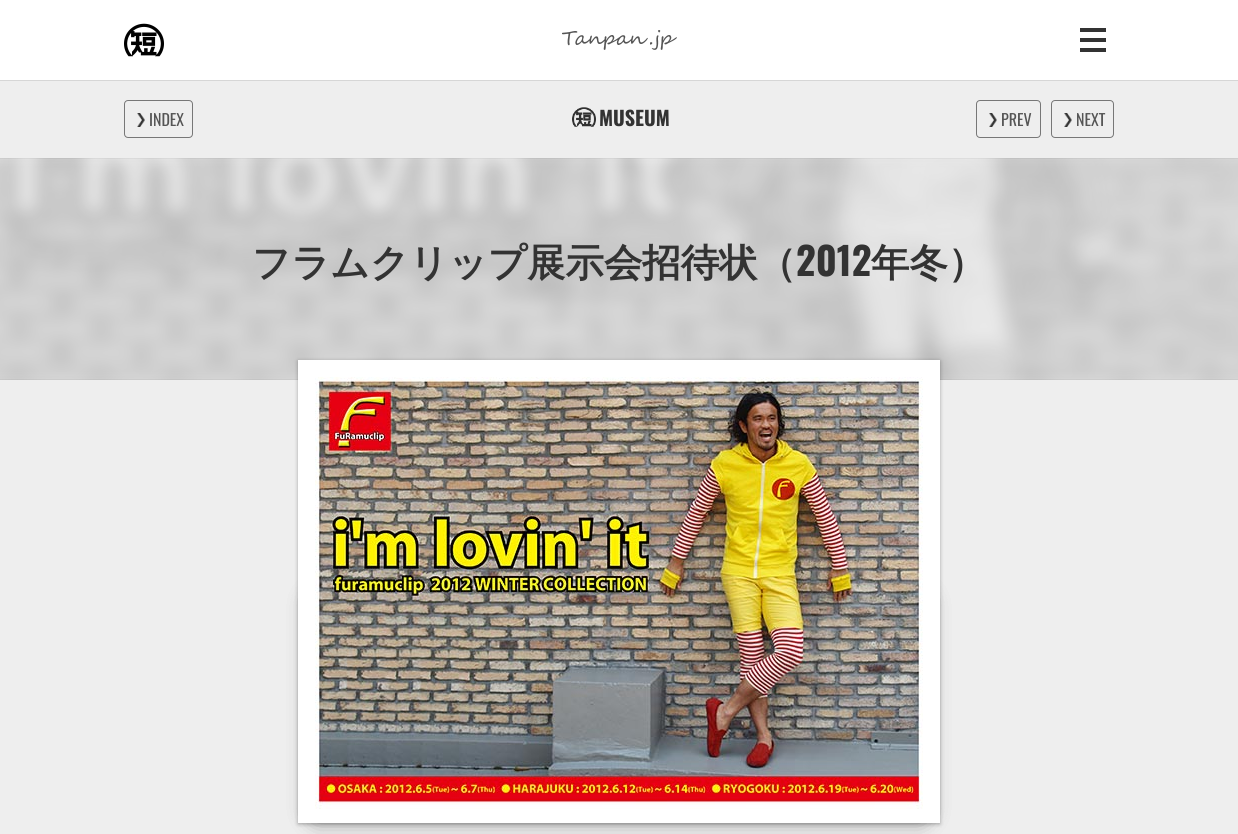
import math
import cairo


def use_color(cr, r, g, b):
  cr.set_source_rgb(r / 255, g / 255, b / 255)

def text(cr, x, y, s, family, size, color, bold=False, italic=False):
  cr.select_font_face(family, cairo.FONT_SLANT_ITALIC if italic else cairo.FONT_SLANT_NORMAL, cairo.FONT_WEIGHT_BOLD if bold else cairo.FONT_WEIGHT_NORMAL)
  cr.set_font_size(size)
  use_color(cr, *color)
  cr.move_to(x, y)
  cr.show_text(s)

def box(cr, x, y, w, h, *color):
  use_color(cr, *color)
  cr.rectangle(x, y, w, h)
  cr.fill()

def round_rect(cr, x, y, w, h, r):
  cr.new_sub_path()
  for i, (u, v) in enumerate([(x + w - r, y + h - r), (x + r, y + h - r), (x + r, y + r), (x + w - r, y + r)]):
    cr.arc(u, v, r, i * math.pi / 2, (i + 1) * math.pi / 2)
  cr.close_path()

def shadow(cr, x, y, w, h, r, blur, alpha):
  cr.push_group_with_content(cairo.CONTENT_ALPHA)
  cr.set_operator(cairo.OPERATOR_SOURCE)
  for i in range(15, -16, -2):
    e = blur * i / 6
    if min(w, h) + 2 * e > 0:
      cr.set_source_rgba(0, 0, 0, alpha * math.erfc((i - 1) / 8.5) / 2)
      round_rect(cr, x - e, y - e, w + 2 * e, h + 2 * e, max(0, min(r + e + blur * .6, min(w, h) / 2 + e)))
      cr.fill()
  cr.mask(cr.pop_group())

def picture(cr, path, x, y, w, h):
  cr.save()
  cr.set_source_surface(cairo.ImageSurface.create_from_png(path), x, y)
  cr.rectangle(x, y, w, h)
  cr.fill()
  cr.restore()

def draw(cr):
  use_color(cr, 238, 238, 238)
  cr.paint()
  box(cr, 0, 80, 1238, 1, 214, 214, 214)
  box(cr, 0, 0, 1238, 80, 255, 255, 255)
  picture(cr, "img_01.png", 562, 30, 115, 20)
  picture(cr, "img_02.png", 124, 23, 40, 34)
  box(cr, 1080, 28, 26, 4, 51, 51, 51)
  box(cr, 1080, 38, 26, 4, 51, 51, 51)
  box(cr, 1080, 48, 26, 4, 51, 51, 51)
  round_rect(cr, 124.5, 100.5, 68, 37, 3.5)
  use_color(cr, 119, 119, 119)
  cr.set_line_width(1)
  cr.stroke()
  picture(cr, "img_03.png", 137, 113, 8, 14)
  picture(cr, "img_04.png", 572, 107, 24, 20)
  round_rect(cr, 976.5, 100.5, 64, 37, 3.5)
  cr.stroke()
  picture(cr, "img_05.png", 989, 113, 8, 14)
  round_rect(cr, 1051.5, 100.5, 62, 37, 3.5)
  cr.stroke()
  picture(cr, "img_05.png", 1064, 113, 8, 14)
  box(cr, 0, 379, 1238, 1, 226, 226, 226)
  box(cr, 0, 158, 1238, 1, 226, 226, 226)
  picture(cr, "img_06.png", 0, 158, 1238, 222)
  use_color(cr, 0, 0, 0)
  shadow(cr, 298, 361, 642, 463, 0, 2, 0.3)
  shadow(cr, 308, 591, 622, 232, 10, 10, 0.2)
  shadow(cr, 308, 591, 622, 232, 10, 10, 0.2)
  box(cr, 298, 360, 642, 463, 255, 255, 255)
  picture(cr, "img_07.png", 315, 377, 608, 432)
  text(cr, 149, 126, "INDEX", "Oswald", 16, (85, 85, 85))
  text(cr, 599, 126, "MUSEUM", "Oswald", 20, (51, 51, 51), bold=True)
  text(cr, 1001, 126, "PREV", "Oswald", 16, (85, 85, 85))
  text(cr, 1076, 126, "NEXT", "Oswald", 16, (85, 85, 85))
  text(cr, 252, 276, "フラムクリップ展示会招待状（", "WenQuanYi Zen Hei", 38.4, (51, 51, 51), bold=True)
  text(cr, 796, 276, "2012", "Oswald", 38.4, (51, 51, 51), bold=True)
  text(cr, 871, 276, "年冬）", "WenQuanYi Zen Hei", 38.4, (51, 51, 51), bold=True)


surface = cairo.ImageSurface(cairo.FORMAT_RGB24, 1238, 834)
cr = cairo.Context(surface)
options = cairo.FontOptions()
options.set_hint_metrics(cairo.HINT_METRICS_OFF)
options.set_hint_style(cairo.HINT_STYLE_NONE)
cr.set_font_options(options)
cr.set_miter_limit(4)
draw(cr)
surface.write_to_png("out.png")
